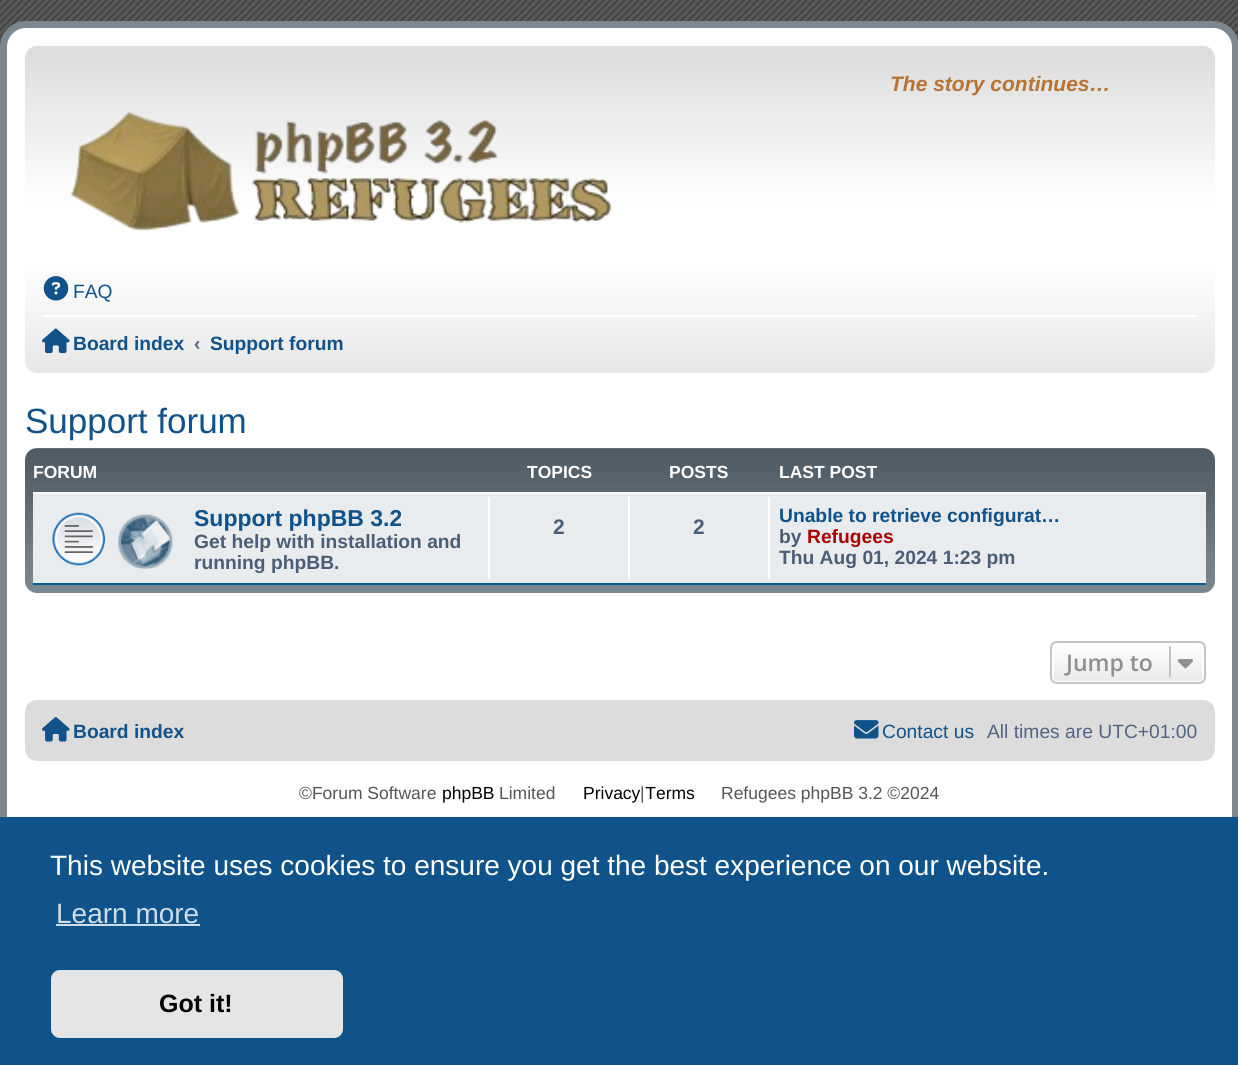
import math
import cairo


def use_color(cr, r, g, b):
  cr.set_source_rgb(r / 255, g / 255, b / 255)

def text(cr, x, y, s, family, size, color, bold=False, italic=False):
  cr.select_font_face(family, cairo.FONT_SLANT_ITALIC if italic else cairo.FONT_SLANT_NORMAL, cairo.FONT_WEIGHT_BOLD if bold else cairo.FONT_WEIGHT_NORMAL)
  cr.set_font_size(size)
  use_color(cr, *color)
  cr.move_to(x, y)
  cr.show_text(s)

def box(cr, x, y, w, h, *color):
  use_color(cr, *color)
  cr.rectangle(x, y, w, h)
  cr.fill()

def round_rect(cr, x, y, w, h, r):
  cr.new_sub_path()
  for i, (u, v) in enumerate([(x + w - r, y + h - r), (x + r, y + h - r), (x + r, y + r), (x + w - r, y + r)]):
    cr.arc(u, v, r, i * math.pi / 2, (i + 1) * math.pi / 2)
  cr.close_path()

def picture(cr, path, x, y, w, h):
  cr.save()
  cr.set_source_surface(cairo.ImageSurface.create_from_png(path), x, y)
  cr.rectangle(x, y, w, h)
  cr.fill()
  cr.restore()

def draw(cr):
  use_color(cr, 255, 255, 255)
  cr.paint()
  picture(cr, "img_01.png", 0, 0, 1238, 47)
  use_color(cr, 255, 255, 255)
  round_rect(cr, 3.5, 24.5, 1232, 824, 22.5)
  cr.fill_preserve()
  use_color(cr, 124, 136, 145)
  cr.set_line_width(7)
  cr.stroke()
  gradient = cairo.LinearGradient(620, 45, 620, 259)
  gradient.add_color_stop_rgba(0, 0.863, 0.863, 0.863, 1)
  gradient.add_color_stop_rgba(0.02, 0.863, 0.863, 0.863, 1)
  gradient.add_color_stop_rgba(0.75, 1, 1, 1, 1)
  gradient.add_color_stop_rgba(1, 1, 1, 1, 1)
  cr.set_source(gradient)
  cr.new_path()
  cr.move_to(37, 46)
  cr.line_to(1203, 46)
  cr.curve_to(1209.5, 46, 1215, 51.5, 1215, 58)
  cr.line_to(1215, 259)
  cr.line_to(25, 259)
  cr.line_to(25, 58)
  cr.curve_to(25, 51.5, 30.5, 46, 37, 46)
  cr.close_path()
  cr.fill()
  picture(cr, "img_02.png", 70, 111, 542, 121)
  gradient = cairo.LinearGradient(620, 259, 620, 420)
  gradient.add_color_stop_rgba(0, 1, 1, 1, 1)
  gradient.add_color_stop_rgba(0.02, 1, 1, 1, 1)
  gradient.add_color_stop_rgba(1, 0.863, 0.863, 0.863, 1)
  cr.set_source(gradient)
  cr.new_path()
  cr.move_to(25, 259)
  cr.line_to(1215, 259)
  cr.line_to(1215, 361)
  cr.curve_to(1215, 367.5, 1209.5, 373, 1203, 373)
  cr.line_to(37, 373)
  cr.curve_to(30.5, 373, 25, 367.5, 25, 361)
  cr.close_path()
  cr.fill()
  picture(cr, "img_03.png", 43, 276, 26, 25)
  box(cr, 42, 315, 1155, 2, 255, 255, 255)
  picture(cr, "img_04.png", 42, 328, 28, 26)
  gradient = cairo.LinearGradient(620, 448, 620, 593)
  gradient.add_color_stop_rgba(0, 0.431, 0.467, 0.498, 1)
  gradient.add_color_stop_rgba(0.01, 0.314, 0.361, 0.396, 1)
  gradient.add_color_stop_rgba(0.2, 0.337, 0.384, 0.42, 1)
  gradient.add_color_stop_rgba(0.75, 0.451, 0.498, 0.533, 1)
  gradient.add_color_stop_rgba(1, 0.486, 0.533, 0.569, 1)
  cr.set_source(gradient)
  round_rect(cr, 25, 448, 1190, 145, 12)
  cr.fill()
  box(cr, 33, 494, 1173, 89, 232, 236, 238)
  box(cr, 33, 492, 1173, 2, 255, 255, 255)
  box(cr, 33, 583, 1173, 2, 0, 96, 143)
  picture(cr, "img_05.png", 52, 512, 53, 54)
  picture(cr, "img_06.png", 118, 514, 55, 55)
  box(cr, 488, 497, 2, 82, 255, 255, 255)
  box(cr, 628, 497, 2, 82, 255, 255, 255)
  box(cr, 768, 497, 2, 82, 255, 255, 255)
  cr.save()
  round_rect(cr, 1050, 641, 156, 43, 7)
  cr.clip()
  gradient = cairo.LinearGradient(1128, 642, 1128, 683)
  gradient.add_color_stop_rgba(0, 1, 1, 1, 1)
  gradient.add_color_stop_rgba(1, 0.914, 0.914, 0.914, 1)
  cr.set_source(gradient)
  cr.rectangle(1050, 642, 156, 41)
  cr.fill()
  cr.restore()
  round_rect(cr, 1053, 643, 150, 39, 4)
  cr.set_line_width(2)
  cr.stroke()
  round_rect(cr, 1051, 642, 154, 41, 6)
  use_color(cr, 199, 195, 191)
  cr.stroke()
  box(cr, 1169, 646, 2, 31, 199, 195, 191)
  picture(cr, "img_07.png", 1177, 659, 16, 10)
  use_color(cr, 220, 220, 220)
  round_rect(cr, 25, 700, 1190, 61, 12)
  cr.fill()
  picture(cr, "img_08.png", 42, 717, 28, 25)
  picture(cr, "img_09.png", 854, 720, 25, 19)
  box(cr, 0, 817, 1238, 248, 15, 83, 138)
  box(cr, 56, 924, 144, 2, 207, 221, 232)
  use_color(cr, 229, 229, 229)
  round_rect(cr, 51, 970, 292, 68, 9)
  cr.fill()
  text(cr, 890, 91, "The story continues…", "Liberation Sans", 21, (184, 115, 51), bold=True, italic=True)
  text(cr, 73, 298, "FAQ", "Liberation Sans", 19.25, (16, 82, 137))
  text(cr, 73, 350, "Board index", "Liberation Sans", 19.25, (16, 82, 137), bold=True)
  text(cr, 194, 350, "‹", "Liberation Sans", 19.25, (83, 100, 130), bold=True)
  text(cr, 210, 350, "Support forum", "Liberation Sans", 19.25, (16, 82, 137), bold=True)
  text(cr, 25, 433, "Support forum", "Liberation Sans", 35, (16, 82, 137))
  text(cr, 33, 478, "FORUM", "Liberation Sans", 17.5, (255, 255, 255), bold=True)
  text(cr, 527, 478, "TOPICS", "Liberation Sans", 17.5, (255, 255, 255), bold=True)
  text(cr, 669, 478, "POSTS", "Liberation Sans", 17.5, (255, 255, 255), bold=True)
  text(cr, 779, 478, "LAST POST", "Liberation Sans", 17.5, (255, 255, 255), bold=True)
  text(cr, 194, 526, "Support phpBB 3.2", "Liberation Sans", 23, (16, 82, 137), bold=True)
  text(cr, 194, 548, "Get help with installation and", "Liberation Sans", 19.25, (76, 93, 119), bold=True)
  text(cr, 194, 569, "running phpBB.", "Liberation Sans", 19.25, (76, 93, 119), bold=True)
  text(cr, 553, 534, "2", "Liberation Sans", 21, (76, 93, 119), bold=True)
  text(cr, 693, 534, "2", "Liberation Sans", 21, (76, 93, 119), bold=True)
  text(cr, 779, 522, "Unable to retrieve configurat…", "Liberation Sans", 19.25, (16, 82, 137), bold=True)
  text(cr, 779, 543, "by", "Liberation Sans", 19.25, (76, 93, 119), bold=True)
  text(cr, 807, 543, "Refugees", "Liberation Sans", 19.25, (170, 0, 0), bold=True)
  text(cr, 779, 564, "Thu Aug 01, 2024 1:23 pm", "Liberation Sans", 19.25, (76, 93, 119), bold=True)
  text(cr, 1066, 671, "Jump to", "Open Sans SemiBold", 23, (143, 143, 143))
  text(cr, 73, 738, "Board index", "Liberation Sans", 19.25, (16, 82, 137), bold=True)
  text(cr, 882, 738, "Contact us", "Liberation Sans", 19.25, (16, 82, 137))
  text(cr, 987, 738, "All times are UTC+01:00", "Liberation Sans", 19.25, (83, 100, 130))
  text(cr, 299, 799, "©Forum Software", "Liberation Sans", 17.5, (85, 85, 85))
  text(cr, 442, 799, "phpBB", "Liberation Sans", 17.5, (0, 0, 0))
  text(cr, 499, 799, "Limited", "Liberation Sans", 17.5, (85, 85, 85))
  text(cr, 583, 799, "Privacy Terms", "Liberation Sans", 17.5, (0, 0, 0))
  text(cr, 640, 799, "|", "Liberation Sans", 17.5, (85, 85, 85))
  text(cr, 721, 799, "Refugees phpBB 3.2 ©2024", "Liberation Sans", 17.5, (85, 85, 85))
  text(cr, 50, 875, "This website uses cookies to ensure you get the best experience on our website.", "Liberation Sans", 28, (255, 255, 255))
  text(cr, 56, 923, "Learn more", "Liberation Sans", 28, (207, 221, 232))
  text(cr, 159, 1012, "Got it!", "Liberation Sans", 25, (0, 0, 0), bold=True)


surface = cairo.ImageSurface(cairo.FORMAT_RGB24, 1238, 1065)
cr = cairo.Context(surface)
options = cairo.FontOptions()
options.set_hint_metrics(cairo.HINT_METRICS_OFF)
options.set_hint_style(cairo.HINT_STYLE_NONE)
cr.set_font_options(options)
cr.set_miter_limit(4)
draw(cr)
surface.write_to_png("out.png")
